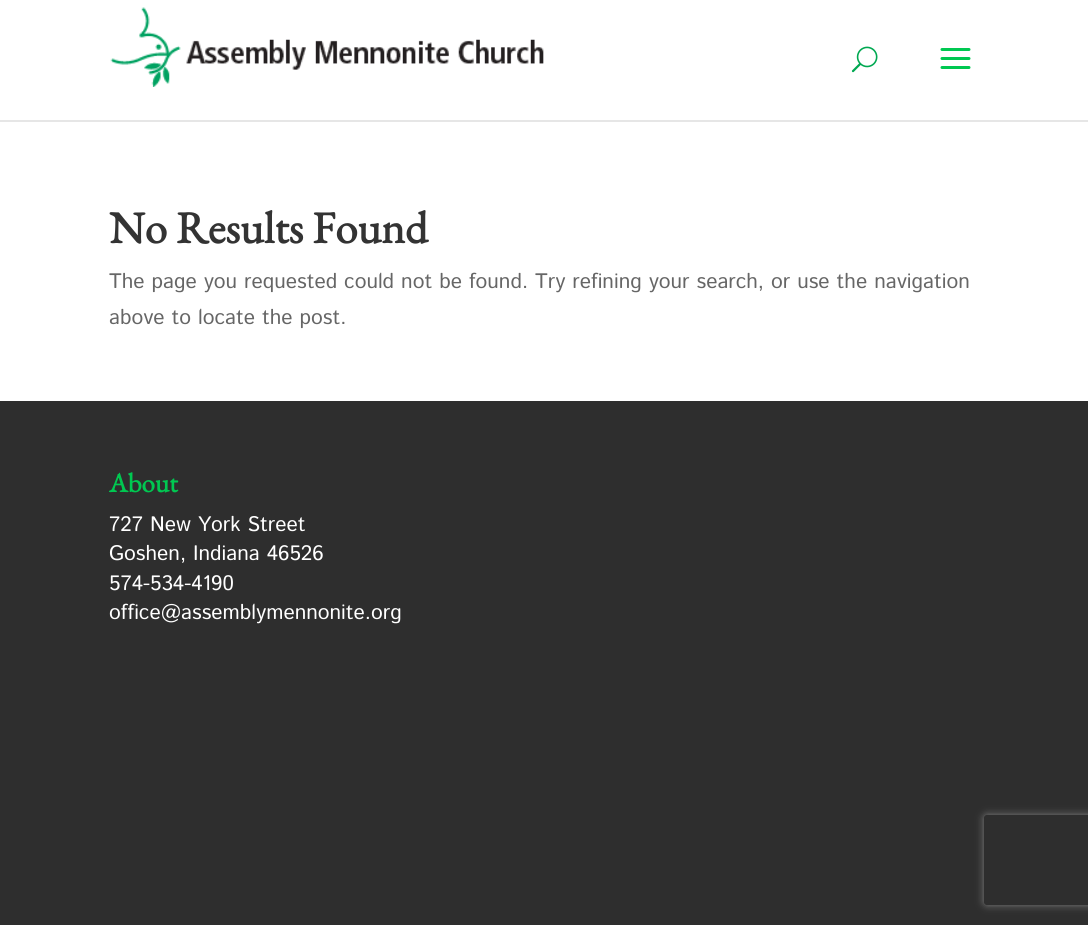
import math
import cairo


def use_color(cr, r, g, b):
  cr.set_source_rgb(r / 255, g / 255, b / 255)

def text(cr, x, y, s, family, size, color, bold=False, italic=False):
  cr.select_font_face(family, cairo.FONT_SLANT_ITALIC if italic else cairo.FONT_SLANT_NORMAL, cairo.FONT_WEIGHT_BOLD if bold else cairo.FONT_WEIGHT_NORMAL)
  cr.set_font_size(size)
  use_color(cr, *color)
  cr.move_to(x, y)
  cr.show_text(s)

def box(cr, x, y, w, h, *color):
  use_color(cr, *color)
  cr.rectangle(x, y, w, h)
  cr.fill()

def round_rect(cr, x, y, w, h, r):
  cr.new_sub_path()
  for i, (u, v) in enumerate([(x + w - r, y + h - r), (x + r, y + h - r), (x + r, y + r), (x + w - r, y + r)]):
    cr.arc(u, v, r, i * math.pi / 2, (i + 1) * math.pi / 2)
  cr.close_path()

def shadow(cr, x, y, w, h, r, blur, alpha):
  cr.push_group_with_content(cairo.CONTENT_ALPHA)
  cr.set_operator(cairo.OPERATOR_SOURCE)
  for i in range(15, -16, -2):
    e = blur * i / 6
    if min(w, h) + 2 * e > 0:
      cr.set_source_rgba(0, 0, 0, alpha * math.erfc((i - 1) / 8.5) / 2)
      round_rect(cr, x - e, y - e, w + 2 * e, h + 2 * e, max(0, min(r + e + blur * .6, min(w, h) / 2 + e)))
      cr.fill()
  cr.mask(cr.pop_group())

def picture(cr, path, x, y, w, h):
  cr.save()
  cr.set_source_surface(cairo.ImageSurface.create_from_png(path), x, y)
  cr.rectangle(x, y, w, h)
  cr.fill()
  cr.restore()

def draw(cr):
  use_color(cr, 255, 255, 255)
  cr.paint()
  box(cr, 0, 120, 1088, 2, 230, 230, 230)
  picture(cr, "img_01.png", 110, 7, 434, 80)
  picture(cr, "img_02.png", 851, 46, 27, 27)
  picture(cr, "img_03.png", 940, 48, 31, 21)
  box(cr, 0, 401, 1088, 524, 46, 46, 46)
  cr.save()
  cr.set_fill_rule(cairo.FILL_RULE_EVEN_ODD)
  cr.new_path()
  cr.move_to(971, 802)
  cr.line_to(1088, 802)
  cr.line_to(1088, 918)
  cr.line_to(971, 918)
  cr.close_path()
  cr.move_to(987, 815)
  cr.line_to(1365, 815)
  cr.curve_to(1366.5, 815, 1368, 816.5, 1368, 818)
  cr.line_to(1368, 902)
  cr.curve_to(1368, 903.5, 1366.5, 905, 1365, 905)
  cr.line_to(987, 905)
  cr.curve_to(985.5, 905, 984, 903.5, 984, 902)
  cr.line_to(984, 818)
  cr.curve_to(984, 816.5, 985.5, 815, 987, 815)
  cr.close_path()
  cr.clip()
  use_color(cr, 128, 128, 128)
  shadow(cr, 984, 815, 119, 90, 3, 4, 1)
  cr.restore()
  text(cr, 109, 243, "No Results Found", "EB Garamond", 45, (51, 51, 51), bold=True)
  text(cr, 109, 288, "The page you requested could not be found. Try refining your search, or use the navigation", "Istok Web", 21, (102, 102, 102))
  text(cr, 109, 324, "above to locate the post.", "Istok Web", 21, (102, 102, 102))
  text(cr, 109, 492, "About", "EB Garamond", 27, (0, 200, 81), bold=True)
  text(cr, 109, 531, "727 New York Street", "Istok Web", 21, (255, 255, 255))
  text(cr, 109, 560, "Goshen, Indiana 46526", "Istok Web", 21, (255, 255, 255))
  text(cr, 109, 590, "574-534-4190", "Istok Web", 21, (255, 255, 255))
  text(cr, 109, 619, "office@assemblymennonite.org", "Istok Web", 21, (255, 255, 255))


surface = cairo.ImageSurface(cairo.FORMAT_RGB24, 1088, 925)
cr = cairo.Context(surface)
options = cairo.FontOptions()
options.set_hint_metrics(cairo.HINT_METRICS_OFF)
options.set_hint_style(cairo.HINT_STYLE_NONE)
cr.set_font_options(options)
cr.set_miter_limit(4)
draw(cr)
surface.write_to_png("out.png")
